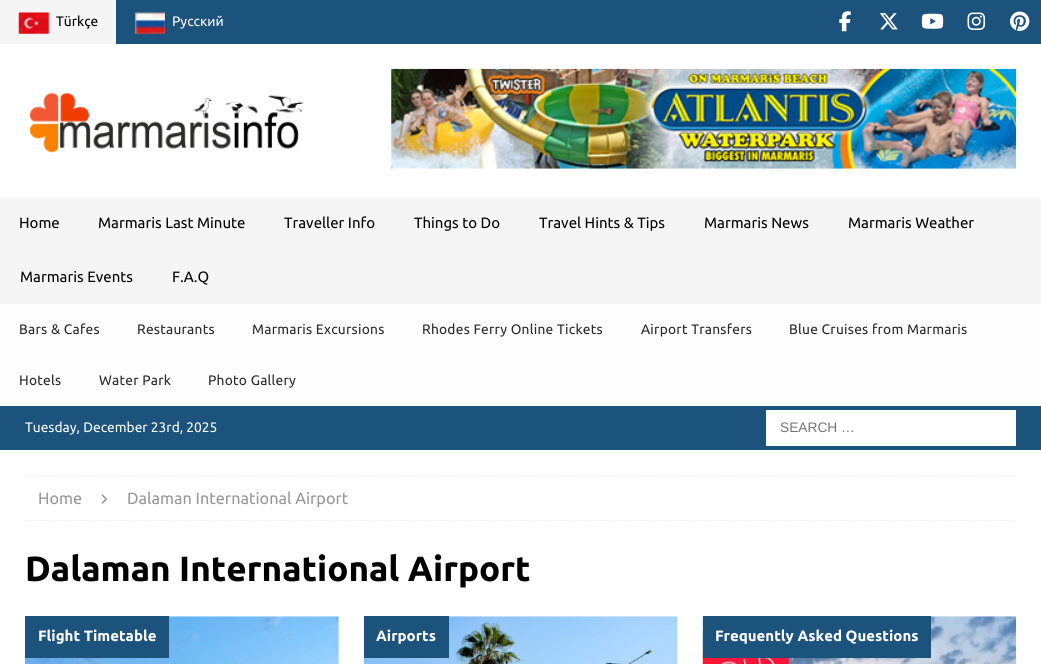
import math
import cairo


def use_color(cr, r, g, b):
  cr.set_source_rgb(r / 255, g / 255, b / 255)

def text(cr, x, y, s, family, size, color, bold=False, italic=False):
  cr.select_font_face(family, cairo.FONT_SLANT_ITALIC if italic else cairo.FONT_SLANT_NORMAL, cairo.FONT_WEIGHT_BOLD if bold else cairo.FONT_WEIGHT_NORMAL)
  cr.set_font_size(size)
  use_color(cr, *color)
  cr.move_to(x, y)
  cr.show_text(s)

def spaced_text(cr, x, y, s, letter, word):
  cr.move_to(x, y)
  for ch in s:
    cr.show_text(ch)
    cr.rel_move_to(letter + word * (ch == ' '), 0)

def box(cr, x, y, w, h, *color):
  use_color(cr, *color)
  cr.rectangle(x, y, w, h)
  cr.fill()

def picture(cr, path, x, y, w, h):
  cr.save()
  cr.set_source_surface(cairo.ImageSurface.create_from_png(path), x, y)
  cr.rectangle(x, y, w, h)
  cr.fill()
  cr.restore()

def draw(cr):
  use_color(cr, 28, 83, 124)
  cr.paint()
  box(cr, 0, 0, 116, 44, 245, 245, 245)
  picture(cr, "img_01.png", 18, 12, 31, 22)
  picture(cr, "img_02.png", 135, 12, 30, 22)
  picture(cr, "img_03.png", 839, 11, 12, 21)
  picture(cr, "img_04.png", 879, 13, 19, 17)
  picture(cr, "img_05.png", 921, 13, 23, 16)
  picture(cr, "img_06.png", 967, 12, 18, 18)
  picture(cr, "img_07.png", 1010, 11, 20, 20)
  box(cr, 0, 44, 1041, 154, 255, 255, 255)
  picture(cr, "img_08.png", 29, 92, 275, 61)
  picture(cr, "img_09.png", 391, 68, 626, 101)
  box(cr, 0, 198, 1041, 106, 245, 245, 245)
  box(cr, 0, 304, 1041, 102, 253, 253, 253)
  box(cr, 766, 410, 250, 36, 255, 255, 255)
  box(cr, 0, 450, 1041, 214, 255, 255, 255)
  cr.save()
  cr.rectangle(25, 475, 991, 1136)
  cr.clip()
  cr.new_path()
  cr.move_to(25, 475.5)
  cr.line_to(1016, 475.5)
  use_color(cr, 235, 235, 235)
  cr.set_line_width(1.2)
  cr.set_dash([1.25, 1.25])
  cr.stroke()
  cr.restore()
  cr.new_path()
  cr.move_to(25, 520.5)
  cr.line_to(1016, 520.5)
  use_color(cr, 235, 235, 235)
  cr.set_line_width(1.2)
  cr.set_dash([1.25, 1.25])
  cr.stroke()
  picture(cr, "img_10.png", 101, 494, 6, 10)
  picture(cr, "img_11.png", 25, 616, 314, 48)
  box(cr, 25, 616, 144, 42, 28, 83, 124)
  picture(cr, "img_12.png", 363, 616, 315, 48)
  box(cr, 364, 616, 85, 42, 28, 83, 124)
  picture(cr, "img_13.png", 702, 616, 315, 48)
  box(cr, 703, 616, 228, 42, 28, 83, 124)
  text(cr, 56, 26, "Türkçe", "Ubuntu", 13.75, (0, 0, 0))
  text(cr, 172, 26, "Pусский", "Ubuntu", 13.75, (255, 255, 255))
  text(cr, 19, 228, "Home", "Ubuntu", 15, (0, 0, 0))
  text(cr, 98, 228, "Marmaris Last Minute", "Ubuntu", 15, (0, 0, 0))
  text(cr, 284, 228, "Traveller Info", "Ubuntu", 15, (0, 0, 0))
  text(cr, 414, 228, "Things to Do", "Ubuntu", 15, (0, 0, 0))
  text(cr, 539, 228, "Travel Hints & Tips", "Ubuntu", 15, (0, 0, 0))
  text(cr, 704, 228, "Marmaris News", "Ubuntu", 15, (0, 0, 0))
  text(cr, 848, 228, "Marmaris Weather", "Ubuntu", 15, (0, 0, 0))
  text(cr, 20, 282, "Marmaris Events", "Ubuntu", 15, (0, 0, 0))
  text(cr, 172, 282, "F.A.Q", "Ubuntu", 15, (0, 0, 0))
  cr.set_font_size(13.75)
  use_color(cr, 42, 42, 42)
  spaced_text(cr, 19, 334, "Bars & Cafes", 0.25, 0)
  spaced_text(cr, 137, 334, "Restaurants", 0.25, 0)
  spaced_text(cr, 252, 334, "Marmaris Excursions", 0.25, 0)
  spaced_text(cr, 422, 334, "Rhodes Ferry Online Tickets", 0.25, 0)
  spaced_text(cr, 641, 334, "Airport Transfers", 0.25, 0)
  spaced_text(cr, 789, 334, "Blue Cruises from Marmaris", 0.25, 0)
  spaced_text(cr, 19, 385, "Hotels", 0.25, 0)
  spaced_text(cr, 99, 385, "Water Park", 0.25, 0)
  spaced_text(cr, 208, 385, "Photo Gallery", 0.25, 0)
  text(cr, 25, 432, "Tuesday, December 23rd, 2025", "Ubuntu", 13.75, (255, 255, 255))
  text(cr, 780, 432, "SEARCH …", "Liberation Sans", 13.75, (117, 117, 117))
  text(cr, 38, 504, "Home", "Ubuntu", 16.25, (151, 151, 151))
  text(cr, 127, 504, "Dalaman International Airport", "Ubuntu", 16.25, (151, 151, 151))
  text(cr, 25, 581, "Dalaman International Airport", "Ubuntu", 35, (0, 0, 0), bold=True)
  text(cr, 38, 641, "Flight Timetable", "Ubuntu", 15, (255, 255, 255), bold=True)
  text(cr, 376, 641, "Airports", "Ubuntu", 15, (255, 255, 255), bold=True)
  text(cr, 715, 641, "Frequently Asked Questions", "Ubuntu", 15, (255, 255, 255), bold=True)


surface = cairo.ImageSurface(cairo.FORMAT_RGB24, 1041, 664)
cr = cairo.Context(surface)
options = cairo.FontOptions()
options.set_hint_metrics(cairo.HINT_METRICS_OFF)
options.set_hint_style(cairo.HINT_STYLE_NONE)
cr.set_font_options(options)
cr.set_miter_limit(4)
draw(cr)
surface.write_to_png("out.png")
